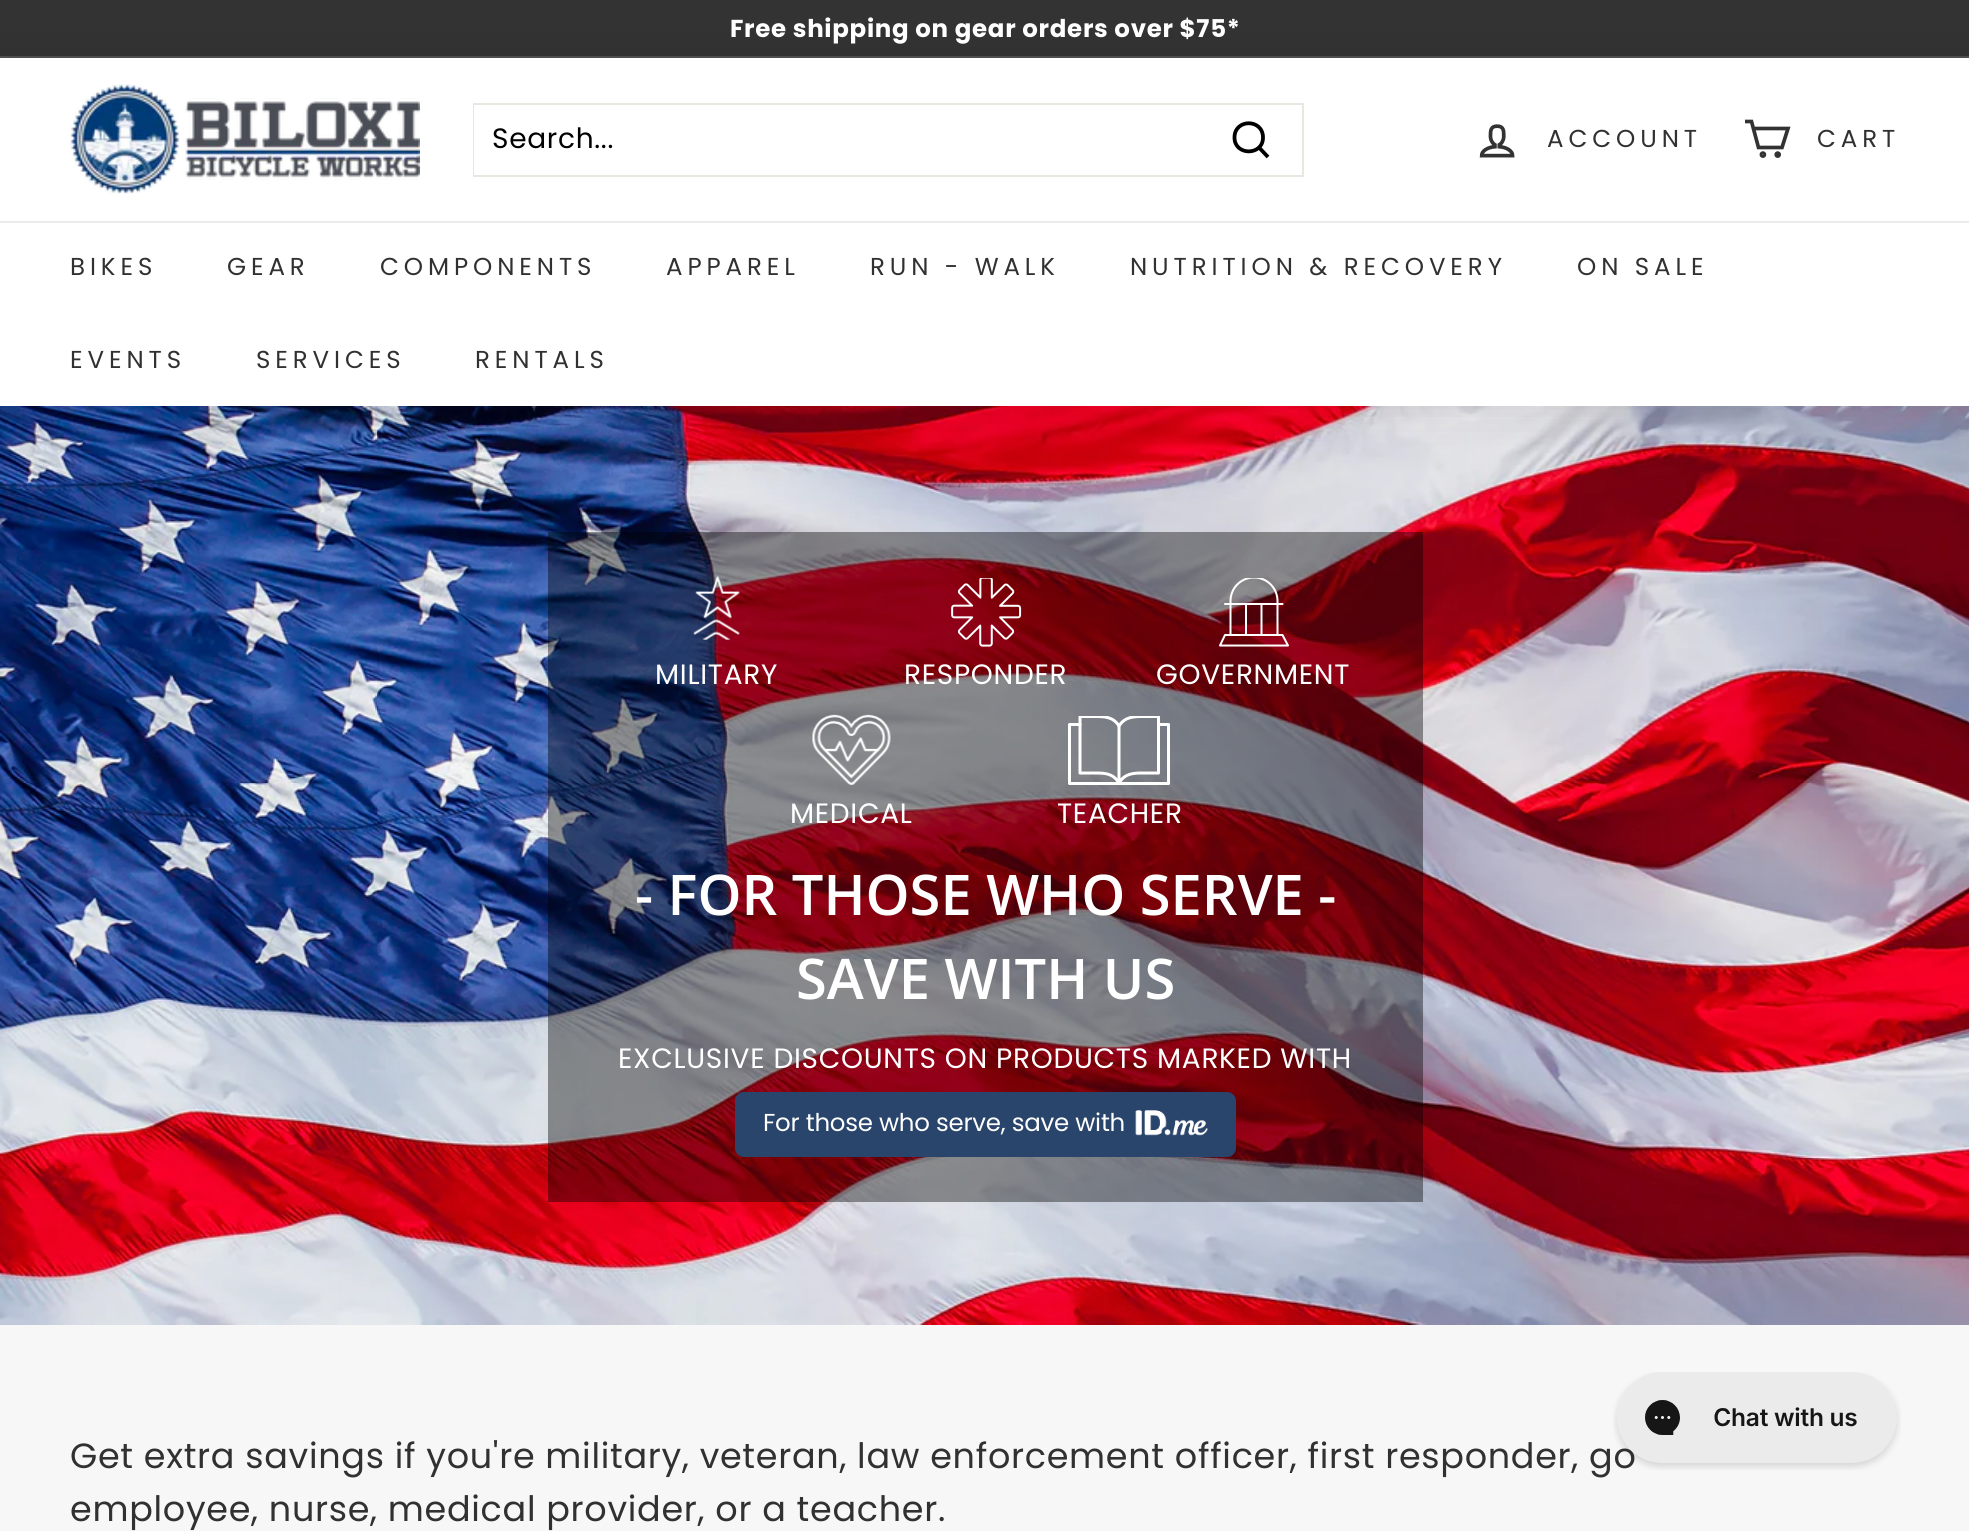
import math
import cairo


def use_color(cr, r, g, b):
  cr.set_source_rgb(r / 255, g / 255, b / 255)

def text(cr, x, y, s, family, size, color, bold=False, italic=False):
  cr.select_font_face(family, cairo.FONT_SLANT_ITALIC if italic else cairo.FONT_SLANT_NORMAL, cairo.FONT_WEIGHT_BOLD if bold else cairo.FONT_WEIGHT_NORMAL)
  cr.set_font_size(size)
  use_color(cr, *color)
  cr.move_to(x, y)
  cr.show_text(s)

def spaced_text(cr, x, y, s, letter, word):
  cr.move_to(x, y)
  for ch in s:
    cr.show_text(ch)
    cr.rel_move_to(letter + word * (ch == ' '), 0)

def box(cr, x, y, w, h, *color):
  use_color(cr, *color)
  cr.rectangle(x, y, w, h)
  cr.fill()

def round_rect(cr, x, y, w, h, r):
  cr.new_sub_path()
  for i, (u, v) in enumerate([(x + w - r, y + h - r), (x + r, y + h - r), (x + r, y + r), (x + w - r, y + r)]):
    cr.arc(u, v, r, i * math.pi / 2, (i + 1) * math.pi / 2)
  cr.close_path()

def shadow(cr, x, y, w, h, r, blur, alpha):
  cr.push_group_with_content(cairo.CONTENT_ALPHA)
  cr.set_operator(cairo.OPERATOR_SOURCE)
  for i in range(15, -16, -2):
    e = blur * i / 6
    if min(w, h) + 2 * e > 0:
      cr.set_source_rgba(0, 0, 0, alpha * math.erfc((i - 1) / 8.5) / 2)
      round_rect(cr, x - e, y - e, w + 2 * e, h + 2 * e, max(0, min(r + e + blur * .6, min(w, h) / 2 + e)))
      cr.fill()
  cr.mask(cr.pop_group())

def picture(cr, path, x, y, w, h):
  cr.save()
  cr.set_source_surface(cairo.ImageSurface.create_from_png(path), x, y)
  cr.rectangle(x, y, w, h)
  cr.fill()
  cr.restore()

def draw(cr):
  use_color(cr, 247, 247, 247)
  cr.paint()
  box(cr, 0, 0, 1969, 56, 51, 51, 51)
  box(cr, 0, 56, 1969, 2, 82, 82, 82)
  use_color(cr, 0, 0, 0)
  shadow(cr, 0, 58, 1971, 163, 0, 22, 0.1)
  picture(cr, "img_03.png", 0, 406, 1969, 919)
  shadow(cr, 0, 221, 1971, 185, 0, 22, 0.1)
  box(cr, 0, 58, 1969, 163, 255, 255, 255)
  picture(cr, "img_01.png", 70, 84, 350, 110)
  cr.rectangle(474, 104, 829, 72)
  use_color(cr, 232, 232, 225)
  cr.stroke()
  box(cr, 474, 105, 1, 70, 255, 255, 255)
  cr.new_path()
  cr.move_to(1263, 137.5)
  cr.curve_to(1263, 156, 1234.5, 156, 1234.5, 137.5)
  cr.curve_to(1234.5, 118.5, 1263, 118.5, 1263, 137.5)
  cr.close_path()
  cr.move_to(1268, 157)
  cr.line_to(1259, 147.5)
  use_color(cr, 0, 0, 0)
  cr.set_line_width(3.8)
  cr.stroke()
  picture(cr, "img_02.png", 1479, 124, 36, 34)
  cr.new_path()
  cr.move_to(1753.5, 128.5)
  cr.line_to(1788, 128.5)
  cr.line_to(1782, 147.5)
  cr.line_to(1758.5, 147.5)
  cr.line_to(1751.5, 121.5)
  cr.line_to(1745, 121.5)
  use_color(cr, 51, 51, 51)
  cr.set_line_width(3.7)
  cr.stroke()
  cr.arc(1762.9, 154.6, 1.5, 0, 2 * math.pi)
  cr.stroke()
  cr.arc(1777.7, 154.6, 1.5, 0, 2 * math.pi)
  cr.fill_preserve()
  cr.stroke()
  box(cr, 0, 223, 1969, 183, 255, 255, 255)
  box(cr, 0, 221, 1969, 2, 235, 235, 235)
  cr.set_source_rgba(0, 0, 0, 0.4)
  cr.rectangle(548, 532, 875, 670)
  cr.fill()
  picture(cr, "img_04.png", 693, 576, 47, 64)
  picture(cr, "img_05.png", 951, 578, 71, 69)
  cr.new_path()
  cr.move_to(1288, 645.5)
  cr.line_to(1220, 645.5)
  cr.line_to(1225, 635)
  cr.line_to(1282.5, 635)
  cr.close_path()
  cr.move_to(1246, 604)
  cr.line_to(1246, 635)
  cr.move_to(1261.5, 604)
  cr.line_to(1261.5, 635)
  cr.move_to(1225, 604)
  cr.line_to(1282.5, 604)
  use_color(cr, 255, 255, 255)
  cr.set_line_width(2)
  cr.set_line_cap(cairo.LINE_CAP_ROUND)
  cr.set_line_join(cairo.LINE_JOIN_ROUND)
  cr.stroke()
  cr.save()
  cr.rectangle(1141, 578, 226, 70)
  cr.clip()
  cr.new_path()
  cr.move_to(1230.5, 635)
  cr.line_to(1230.5, 601)
  cr.curve_to(1230.5, 588, 1241, 577.5, 1254, 577.5)
  cr.curve_to(1267, 577.5, 1277.5, 588, 1277.5, 601)
  cr.line_to(1277.5, 635)
  cr.stroke()
  cr.restore()
  picture(cr, "img_06.png", 812, 714, 79, 71)
  cr.save()
  cr.rectangle(1006, 716, 226, 70)
  cr.clip()
  cr.new_path()
  cr.move_to(1119, 726)
  cr.curve_to(1113, 716.5, 1104.5, 716.5, 1094, 716.5)
  cr.line_to(1080, 716.5)
  cr.line_to(1080, 773)
  cr.line_to(1094, 773)
  cr.curve_to(1104.5, 773, 1113, 773, 1119, 783)
  cr.set_line_width(3)
  cr.stroke()
  cr.restore()
  cr.new_path()
  cr.move_to(1158.5, 724.5)
  cr.line_to(1168.5, 724.5)
  cr.line_to(1168.5, 783.5)
  cr.line_to(1119, 783.5)
  cr.set_line_width(3)
  cr.stroke()
  cr.new_path()
  cr.move_to(1119, 783.5)
  cr.line_to(1069.5, 783.5)
  cr.line_to(1069.5, 724.5)
  cr.line_to(1080, 724.5)
  cr.stroke()
  cr.save()
  cr.rectangle(1006, 716, 226, 70)
  cr.clip()
  cr.new_path()
  cr.move_to(1158.5, 730.5)
  cr.line_to(1158.5, 716.5)
  cr.line_to(1144, 716.5)
  cr.curve_to(1134, 716.5, 1125, 716.5, 1119, 726)
  cr.line_to(1119, 783)
  cr.curve_to(1125, 773, 1134, 773, 1144, 773)
  cr.line_to(1158.5, 773)
  cr.line_to(1158.5, 730.5)
  cr.stroke()
  cr.restore()
  use_color(cr, 42, 69, 107)
  round_rect(cr, 735, 1092, 501, 65, 9)
  cr.fill()
  picture(cr, "img_07.png", 1135, 1110, 73, 26)
  cr.select_font_face("Poppins", cairo.FONT_SLANT_NORMAL, cairo.FONT_WEIGHT_BOLD)
  cr.set_font_size(24.5)
  use_color(cr, 255, 255, 255)
  spaced_text(cr, 730, 37, "Free shipping on gear orders over $75*", 0.7, 0)
  cr.select_font_face("Poppins")
  cr.set_font_size(28)
  use_color(cr, 0, 0, 0)
  spaced_text(cr, 492, 148, "Search...", 0.7, 0)
  cr.set_font_size(24.5)
  use_color(cr, 49, 49, 49)
  spaced_text(cr, 1547, 147, "ACCOUNT", 4.9, 0)
  spaced_text(cr, 1817, 147, "CART", 4.9, 0)
  spaced_text(cr, 70, 275, "BIKES", 4.9, 0)
  spaced_text(cr, 227, 275, "GEAR", 4.9, 0)
  spaced_text(cr, 380, 275, "COMPONENTS", 4.9, 0)
  spaced_text(cr, 666, 275, "APPAREL", 4.9, 0)
  spaced_text(cr, 870, 275, "RUN - WALK", 4.9, 0)
  spaced_text(cr, 1130, 275, "NUTRITION & RECOVERY", 4.9, 0)
  spaced_text(cr, 1577, 275, "ON SALE", 4.9, 0)
  spaced_text(cr, 70, 368, "EVENTS", 4.9, 0)
  spaced_text(cr, 256, 368, "SERVICES", 4.9, 0)
  spaced_text(cr, 475, 368, "RENTALS", 4.9, 0)
  cr.set_font_size(28)
  use_color(cr, 255, 255, 255)
  spaced_text(cr, 655, 684, "MILITARY", 0.7, 0)
  spaced_text(cr, 904, 684, "RESPONDER", 0.7, 0)
  spaced_text(cr, 1156, 684, "GOVERNMENT", 0.7, 0)
  spaced_text(cr, 790, 823, "MEDICAL", 0.7, 0)
  spaced_text(cr, 1057, 823, "TEACHER", 0.7, 0)
  text(cr, 635, 915, "- FOR THOSE WHO SERVE -", "Open Sans SemiBold", 56, (255, 255, 255))
  text(cr, 796, 999, "SAVE WITH US", "Open Sans SemiBold", 56, (255, 255, 255))
  cr.select_font_face("Poppins")
  cr.set_font_size(28)
  spaced_text(cr, 618, 1068, "EXCLUSIVE DISCOUNTS ON PRODUCTS MARKED WITH", 0.7, 0)
  cr.set_font_size(24.5)
  spaced_text(cr, 763, 1131, "For those who serve, save with", -0.25, 0)
  cr.set_font_size(35)
  use_color(cr, 49, 49, 49)
  spaced_text(cr, 70, 1468, "Get extra savings if you're military, veteran, law enforcement officer, first responder, go", 0.7, 0)
  spaced_text(cr, 70, 1521, "employee, nurse, medical provider, or a teacher.", 0.7, 0)
  picture(cr, "img_08.png", 1613, 1372, 288, 98)


surface = cairo.ImageSurface(cairo.FORMAT_RGB24, 1969, 1531)
cr = cairo.Context(surface)
options = cairo.FontOptions()
options.set_hint_metrics(cairo.HINT_METRICS_OFF)
options.set_hint_style(cairo.HINT_STYLE_NONE)
cr.set_font_options(options)
cr.set_miter_limit(4)
draw(cr)
surface.write_to_png("out.png")
